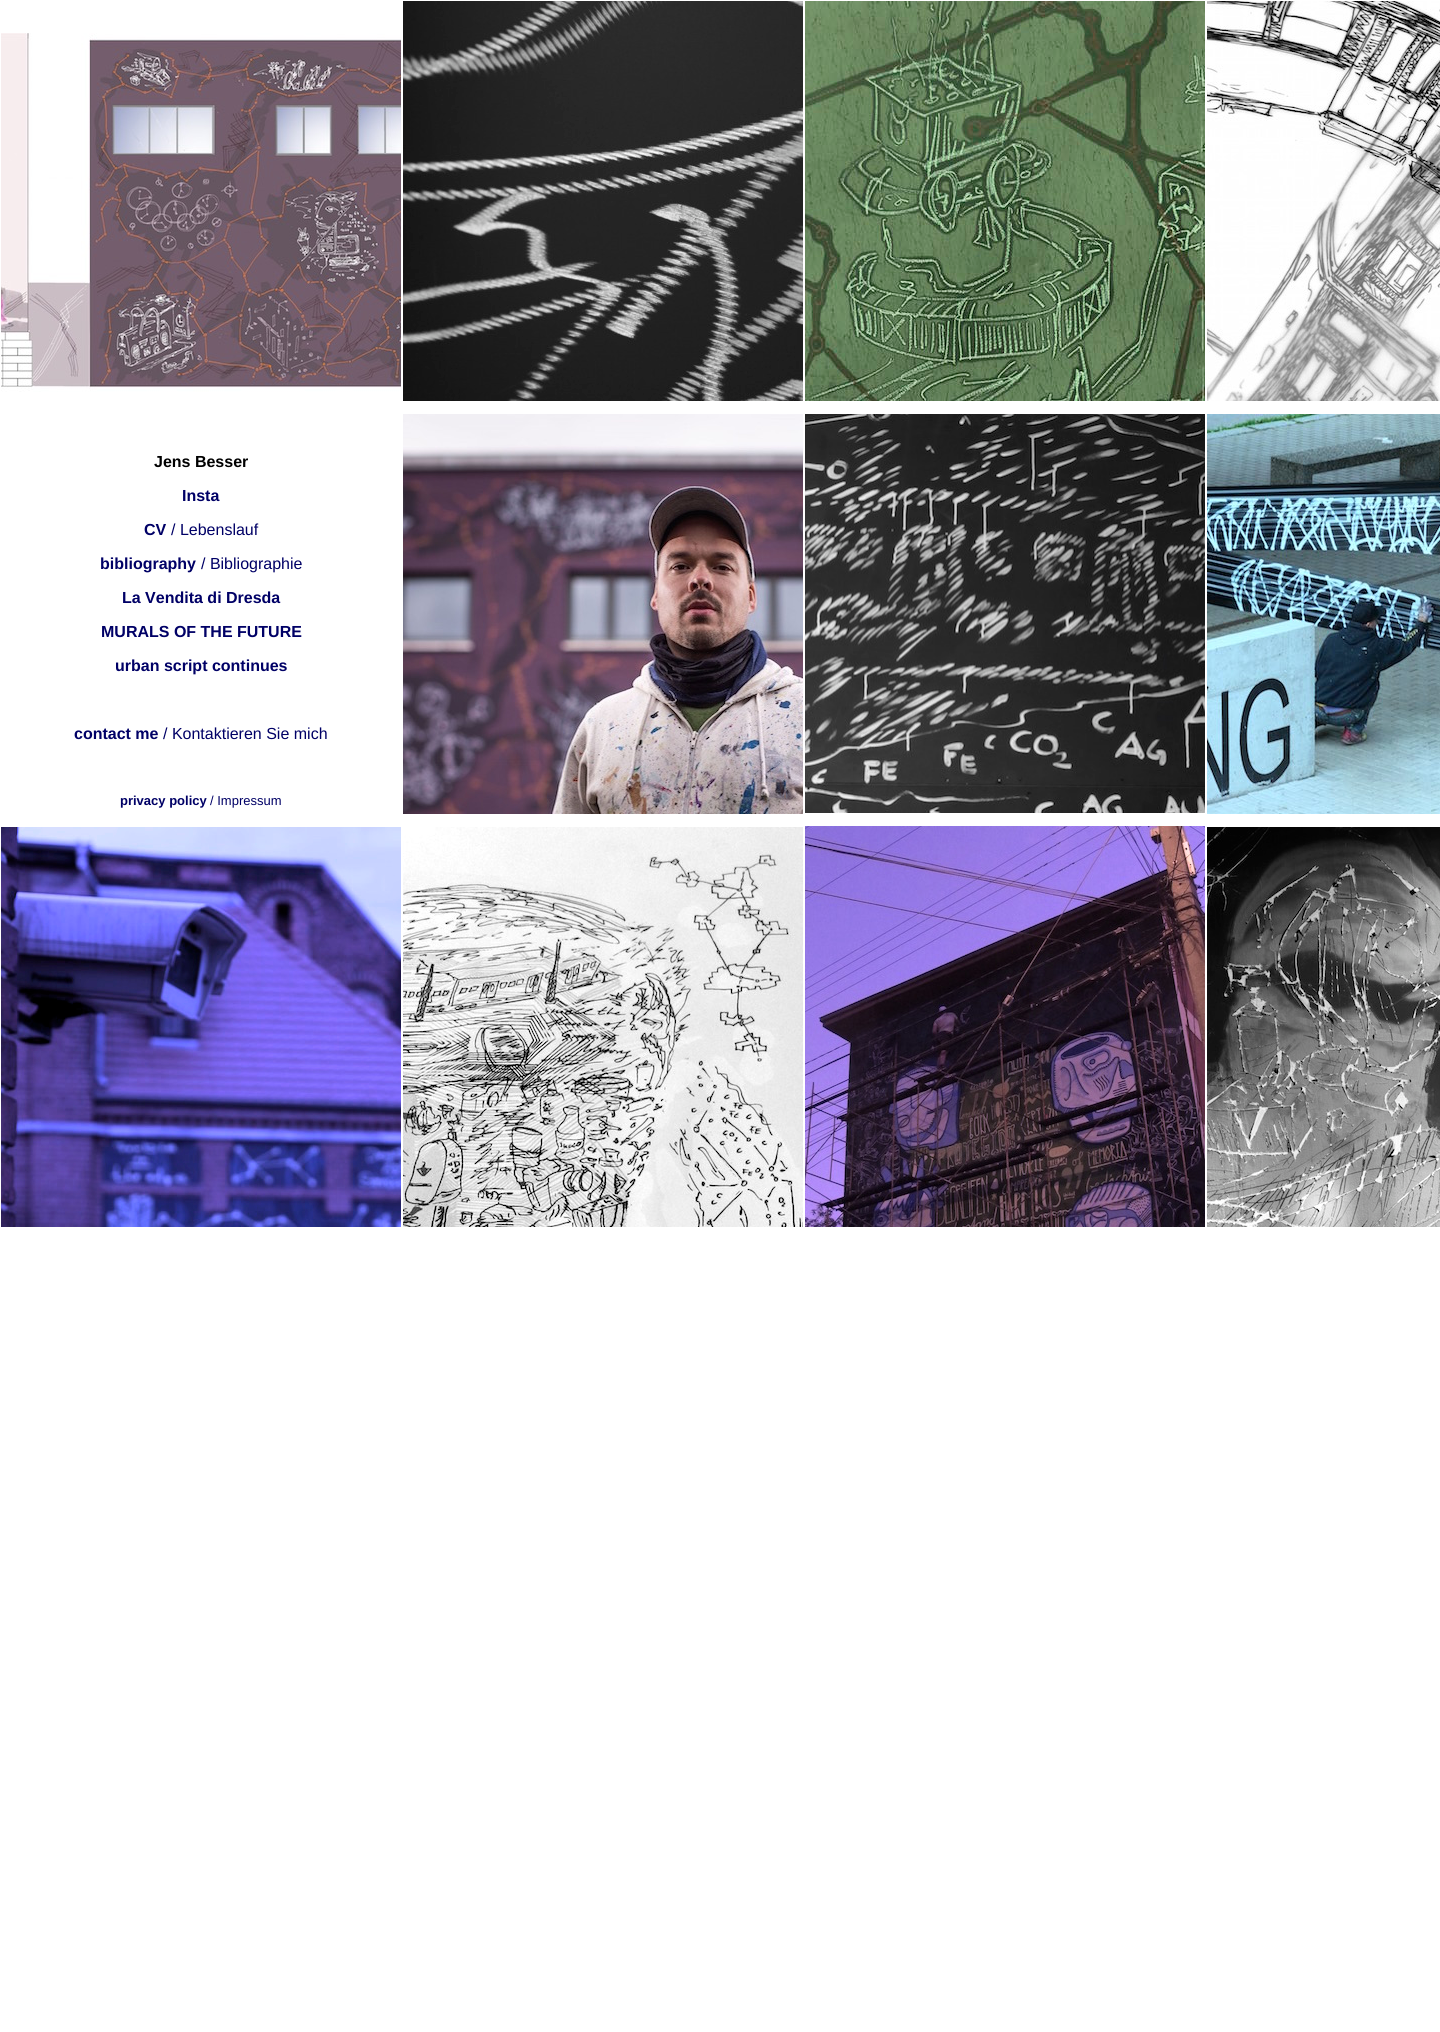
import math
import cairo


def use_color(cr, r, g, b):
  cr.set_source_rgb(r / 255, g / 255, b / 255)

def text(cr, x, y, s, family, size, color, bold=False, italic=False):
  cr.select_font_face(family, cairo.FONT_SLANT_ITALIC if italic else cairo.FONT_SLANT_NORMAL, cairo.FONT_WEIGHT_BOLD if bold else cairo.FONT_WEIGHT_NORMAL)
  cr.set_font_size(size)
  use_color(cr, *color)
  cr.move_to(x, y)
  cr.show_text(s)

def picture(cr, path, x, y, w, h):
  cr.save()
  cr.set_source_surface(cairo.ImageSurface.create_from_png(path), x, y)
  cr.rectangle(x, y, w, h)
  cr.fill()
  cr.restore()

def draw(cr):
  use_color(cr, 255, 255, 255)
  cr.paint()
  picture(cr, "img_01.png", 1, 33, 400, 359)
  picture(cr, "img_02.png", 403, 1, 400, 400)
  picture(cr, "img_03.png", 805, 1, 400, 400)
  picture(cr, "img_04.png", 1207, 1, 233, 400)
  picture(cr, "img_05.png", 403, 414, 400, 400)
  picture(cr, "img_06.png", 805, 414, 400, 399)
  picture(cr, "img_07.png", 1207, 414, 233, 400)
  picture(cr, "img_08.png", 1, 827, 400, 400)
  picture(cr, "img_09.png", 403, 827, 400, 400)
  picture(cr, "img_10.png", 805, 826, 400, 401)
  picture(cr, "img_11.png", 1207, 827, 233, 400)
  text(cr, 154, 467, "Jens Besser", "Liberation Sans", 16, (0, 0, 0), bold=True)
  text(cr, 182, 501, "Insta", "Liberation Sans", 16, (0, 0, 102), bold=True)
  text(cr, 144, 535, "CV", "Liberation Sans", 16, (0, 0, 102), bold=True)
  text(cr, 171, 535, "/ Lebenslauf", "Liberation Sans", 16, (0, 0, 102))
  text(cr, 100, 569, "bibliography", "Liberation Sans", 16, (0, 0, 102), bold=True)
  text(cr, 201, 569, "/ Bibliographie", "Liberation Sans", 16, (0, 0, 102))
  text(cr, 122, 603, "La Vendita di Dresda", "Liberation Sans", 16, (0, 0, 102), bold=True)
  text(cr, 101, 637, "MURALS OF THE FUTURE", "Liberation Sans", 16, (0, 0, 102), bold=True)
  text(cr, 115, 671, "urban script continues", "Liberation Sans", 16, (0, 0, 102), bold=True)
  text(cr, 74, 739, "contact me", "Liberation Sans", 16, (0, 0, 102), bold=True)
  text(cr, 163, 739, "/ Kontaktieren Sie mich", "Liberation Sans", 16, (0, 0, 102))
  text(cr, 120, 805, "privacy policy", "Liberation Sans", 13, (0, 0, 102), bold=True)
  text(cr, 210, 805, "/ Impressum", "Liberation Sans", 13, (0, 0, 102))


surface = cairo.ImageSurface(cairo.FORMAT_RGB24, 1440, 2032)
cr = cairo.Context(surface)
options = cairo.FontOptions()
options.set_hint_metrics(cairo.HINT_METRICS_OFF)
options.set_hint_style(cairo.HINT_STYLE_NONE)
cr.set_font_options(options)
cr.set_miter_limit(4)
draw(cr)
surface.write_to_png("out.png")
